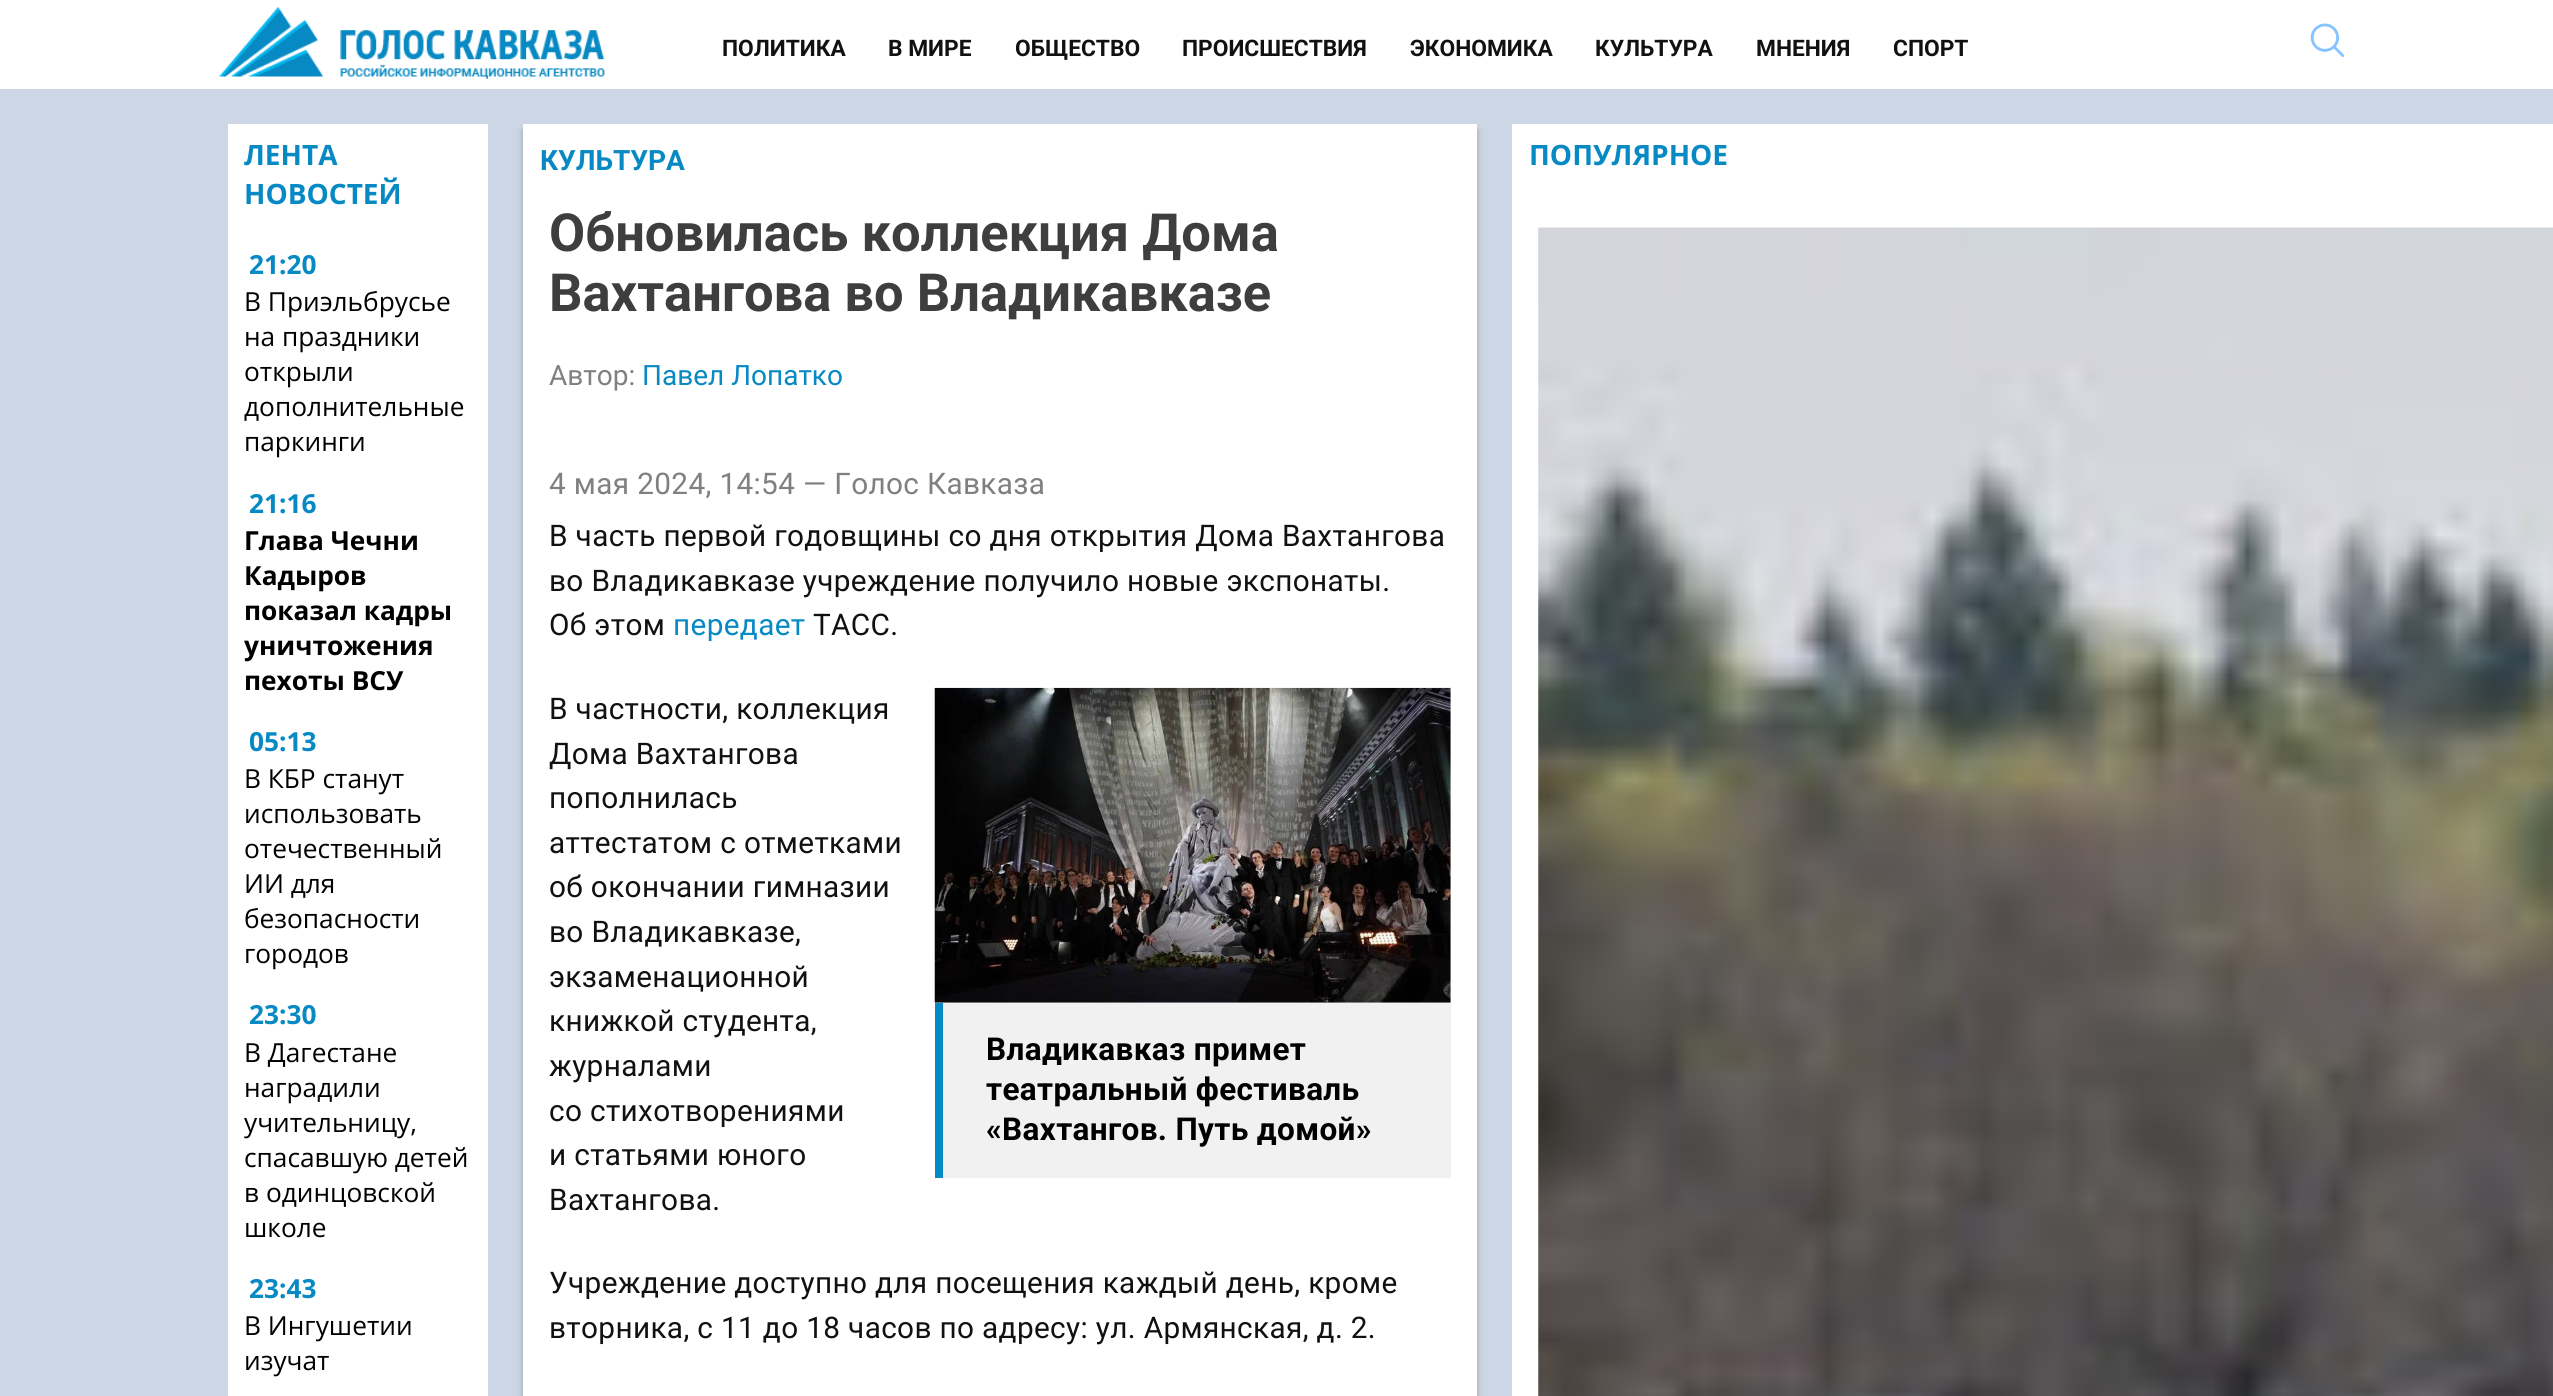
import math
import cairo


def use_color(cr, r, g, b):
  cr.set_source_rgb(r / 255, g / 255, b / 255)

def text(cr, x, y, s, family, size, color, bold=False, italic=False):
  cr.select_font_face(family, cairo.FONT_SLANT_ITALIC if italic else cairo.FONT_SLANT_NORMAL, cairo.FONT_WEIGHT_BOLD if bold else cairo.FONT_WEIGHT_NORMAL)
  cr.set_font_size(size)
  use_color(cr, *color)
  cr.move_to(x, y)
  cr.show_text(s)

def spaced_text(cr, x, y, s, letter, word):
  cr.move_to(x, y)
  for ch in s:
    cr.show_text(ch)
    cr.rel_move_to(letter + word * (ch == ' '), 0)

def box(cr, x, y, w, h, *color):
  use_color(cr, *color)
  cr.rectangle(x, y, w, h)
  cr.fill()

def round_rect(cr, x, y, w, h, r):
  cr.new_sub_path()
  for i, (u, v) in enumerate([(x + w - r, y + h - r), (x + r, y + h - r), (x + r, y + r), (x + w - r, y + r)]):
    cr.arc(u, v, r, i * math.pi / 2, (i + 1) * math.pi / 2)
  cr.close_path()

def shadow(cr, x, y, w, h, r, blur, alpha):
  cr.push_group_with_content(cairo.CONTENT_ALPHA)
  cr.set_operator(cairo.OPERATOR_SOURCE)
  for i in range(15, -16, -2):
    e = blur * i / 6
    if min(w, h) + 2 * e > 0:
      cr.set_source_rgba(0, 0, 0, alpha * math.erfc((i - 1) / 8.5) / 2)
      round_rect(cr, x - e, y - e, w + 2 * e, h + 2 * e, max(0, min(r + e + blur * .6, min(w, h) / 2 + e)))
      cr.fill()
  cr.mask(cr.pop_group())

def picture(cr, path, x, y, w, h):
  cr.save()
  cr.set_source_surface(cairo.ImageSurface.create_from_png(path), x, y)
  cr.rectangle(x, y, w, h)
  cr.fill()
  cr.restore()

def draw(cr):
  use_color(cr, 205, 214, 228)
  cr.paint()
  box(cr, 0, 0, 2553, 89, 255, 255, 255)
  picture(cr, "img_01.png", 219, 7, 386, 72)
  picture(cr, "img_02.png", 2310, 23, 35, 34)
  box(cr, 228, 124, 260, 1272, 255, 255, 255)
  use_color(cr, 0, 0, 0)
  shadow(cr, 523, 131, 954, 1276, 0, 3.5, 0.25)
  box(cr, 523, 124, 954, 1272, 255, 255, 255)
  picture(cr, "img_03.png", 934, 687, 517, 316)
  box(cr, 943, 1003, 508, 175, 241, 241, 241)
  box(cr, 935, 1003, 8, 175, 7, 137, 195)
  box(cr, 1512, 124, 1041, 1272, 255, 255, 255)
  picture(cr, "img_04.png", 1538, 227, 1015, 1169)
  text(cr, 722, 56, "ПОЛИТИКА", "Roboto", 22.75, (17, 17, 17), bold=True)
  text(cr, 888, 56, "В МИРЕ", "Roboto", 22.75, (17, 17, 17), bold=True)
  text(cr, 1015, 56, "ОБЩЕСТВО", "Roboto", 22.75, (17, 17, 17), bold=True)
  text(cr, 1182, 56, "ПРОИСШЕСТВИЯ", "Roboto", 22.75, (17, 17, 17), bold=True)
  text(cr, 1410, 56, "ЭКОНОМИКА", "Roboto", 22.75, (17, 17, 17), bold=True)
  text(cr, 1595, 56, "КУЛЬТУРА", "Roboto", 22.75, (17, 17, 17), bold=True)
  text(cr, 1756, 56, "МНЕНИЯ", "Roboto", 22.75, (17, 17, 17), bold=True)
  text(cr, 1893, 56, "СПОРТ", "Roboto", 22.75, (17, 17, 17), bold=True)
  text(cr, 244, 165, "ЛЕНТА", "Open Sans", 28, (7, 137, 195), bold=True)
  text(cr, 244, 204, "НОВОСТЕЙ", "Open Sans", 28, (7, 137, 195), bold=True)
  text(cr, 249, 274, "21:20", "Open Sans", 26.25, (7, 137, 195), bold=True)
  text(cr, 244, 311, "В Приэльбрусье", "Open Sans", 26.25, (0, 0, 0))
  text(cr, 244, 346, "на праздники", "Open Sans", 26.25, (0, 0, 0))
  text(cr, 244, 381, "открыли", "Open Sans", 26.25, (0, 0, 0))
  text(cr, 244, 416, "дополнительные", "Open Sans", 26.25, (0, 0, 0))
  text(cr, 244, 451, "паркинги", "Open Sans", 26.25, (0, 0, 0))
  text(cr, 249, 513, "21:16", "Open Sans", 26.25, (7, 137, 195), bold=True)
  text(cr, 244, 550, "Глава Чечни", "Open Sans", 26.25, (0, 0, 0), bold=True)
  text(cr, 244, 585, "Кадыров", "Open Sans", 26.25, (0, 0, 0), bold=True)
  text(cr, 244, 620, "показал кадры", "Open Sans", 26.25, (0, 0, 0), bold=True)
  text(cr, 244, 655, "уничтожения", "Open Sans", 26.25, (0, 0, 0), bold=True)
  text(cr, 244, 690, "пехоты ВСУ", "Open Sans", 26.25, (0, 0, 0), bold=True)
  text(cr, 249, 751, "05:13", "Open Sans", 26.25, (7, 137, 195), bold=True)
  text(cr, 244, 788, "В КБР станут", "Open Sans", 26.25, (0, 0, 0))
  text(cr, 244, 823, "использовать", "Open Sans", 26.25, (0, 0, 0))
  text(cr, 244, 858, "отечественный", "Open Sans", 26.25, (0, 0, 0))
  text(cr, 244, 893, "ИИ для", "Open Sans", 26.25, (0, 0, 0))
  text(cr, 244, 928, "безопасности", "Open Sans", 26.25, (0, 0, 0))
  text(cr, 244, 963, "городов", "Open Sans", 26.25, (0, 0, 0))
  text(cr, 249, 1024, "23:30", "Open Sans", 26.25, (7, 137, 195), bold=True)
  text(cr, 244, 1062, "В Дагестане", "Open Sans", 26.25, (0, 0, 0))
  text(cr, 244, 1097, "наградили", "Open Sans", 26.25, (0, 0, 0))
  text(cr, 244, 1132, "учительницу,", "Open Sans", 26.25, (0, 0, 0))
  text(cr, 244, 1167, "спасавшую детей", "Open Sans", 26.25, (0, 0, 0))
  text(cr, 244, 1202, "в одинцовской", "Open Sans", 26.25, (0, 0, 0))
  text(cr, 244, 1237, "школе", "Open Sans", 26.25, (0, 0, 0))
  text(cr, 249, 1298, "23:43", "Open Sans", 26.25, (7, 137, 195), bold=True)
  text(cr, 244, 1335, "В Ингушетии", "Open Sans", 26.25, (0, 0, 0))
  text(cr, 244, 1370, "изучат", "Open Sans", 26.25, (0, 0, 0))
  text(cr, 540, 170, "КУЛЬТУРА", "Roboto", 28, (7, 137, 195), bold=True)
  text(cr, 549, 251, "Обновилась коллекция Дома", "Roboto", 52.5, (62, 62, 63), bold=True)
  text(cr, 549, 311, "Вахтангова во Владикавказе", "Roboto", 52.5, (62, 62, 63), bold=True)
  text(cr, 549, 385, "Автор:", "Roboto", 28, (128, 128, 128))
  text(cr, 642, 385, "Павел Лопатко", "Roboto", 28, (7, 137, 195))
  cr.set_font_size(29.75)
  use_color(cr, 128, 128, 128)
  spaced_text(cr, 549, 494, "4 мая 2024, 14:54 — Голос Кавказа", 0.35, 0)
  use_color(cr, 17, 17, 17)
  spaced_text(cr, 549, 546, "В часть первой годовщины со дня открытия Дома Вахтангова", 0.35, 0)
  spaced_text(cr, 549, 591, "во Владикавказе учреждение получило новые экспонаты.", 0.35, 0)
  spaced_text(cr, 549, 635, "Об этом", 0.35, 0)
  use_color(cr, 7, 137, 195)
  spaced_text(cr, 673, 635, "передает", 0.35, 0)
  use_color(cr, 17, 17, 17)
  spaced_text(cr, 813, 635, "ТАСС.", 0.35, 0)
  spaced_text(cr, 549, 719, "В частности, коллекция", 0.35, 0)
  spaced_text(cr, 549, 764, "Дома Вахтангова", 0.35, 0)
  spaced_text(cr, 549, 808, "пополнилась", 0.35, 0)
  spaced_text(cr, 549, 853, "аттестатом с отметками", 0.35, 0)
  spaced_text(cr, 549, 897, "об окончании гимназии", 0.35, 0)
  spaced_text(cr, 549, 942, "во Владикавказе,", 0.35, 0)
  spaced_text(cr, 549, 987, "экзаменационной", 0.35, 0)
  spaced_text(cr, 549, 1031, "книжкой студента,", 0.35, 0)
  spaced_text(cr, 549, 1076, "журналами", 0.35, 0)
  spaced_text(cr, 549, 1121, "со стихотворениями", 0.35, 0)
  spaced_text(cr, 549, 1165, "и статьями юного", 0.35, 0)
  spaced_text(cr, 549, 1210, "Вахтангова.", 0.35, 0)
  cr.select_font_face("Roboto", cairo.FONT_SLANT_NORMAL, cairo.FONT_WEIGHT_BOLD)
  cr.set_font_size(31.5)
  use_color(cr, 0, 0, 0)
  spaced_text(cr, 986, 1060, "Владикавказ примет", 0.35, 0)
  spaced_text(cr, 986, 1100, "театральный фестиваль", 0.35, 0)
  spaced_text(cr, 986, 1140, "«Вахтангов. Путь домой»", 0.35, 0)
  cr.select_font_face("Roboto")
  cr.set_font_size(29.75)
  use_color(cr, 17, 17, 17)
  spaced_text(cr, 549, 1293, "Учреждение доступно для посещения каждый день, кроме", 0.35, 0)
  spaced_text(cr, 549, 1338, "вторника, с 11 до 18 часов по адресу: ул. Армянская, д. 2.", 0.35, 0)
  text(cr, 1529, 165, "ПОПУЛЯРНОЕ", "Open Sans", 28, (7, 137, 195), bold=True)


surface = cairo.ImageSurface(cairo.FORMAT_RGB24, 2553, 1396)
cr = cairo.Context(surface)
options = cairo.FontOptions()
options.set_hint_metrics(cairo.HINT_METRICS_OFF)
options.set_hint_style(cairo.HINT_STYLE_NONE)
cr.set_font_options(options)
cr.set_miter_limit(4)
draw(cr)
surface.write_to_png("out.png")
